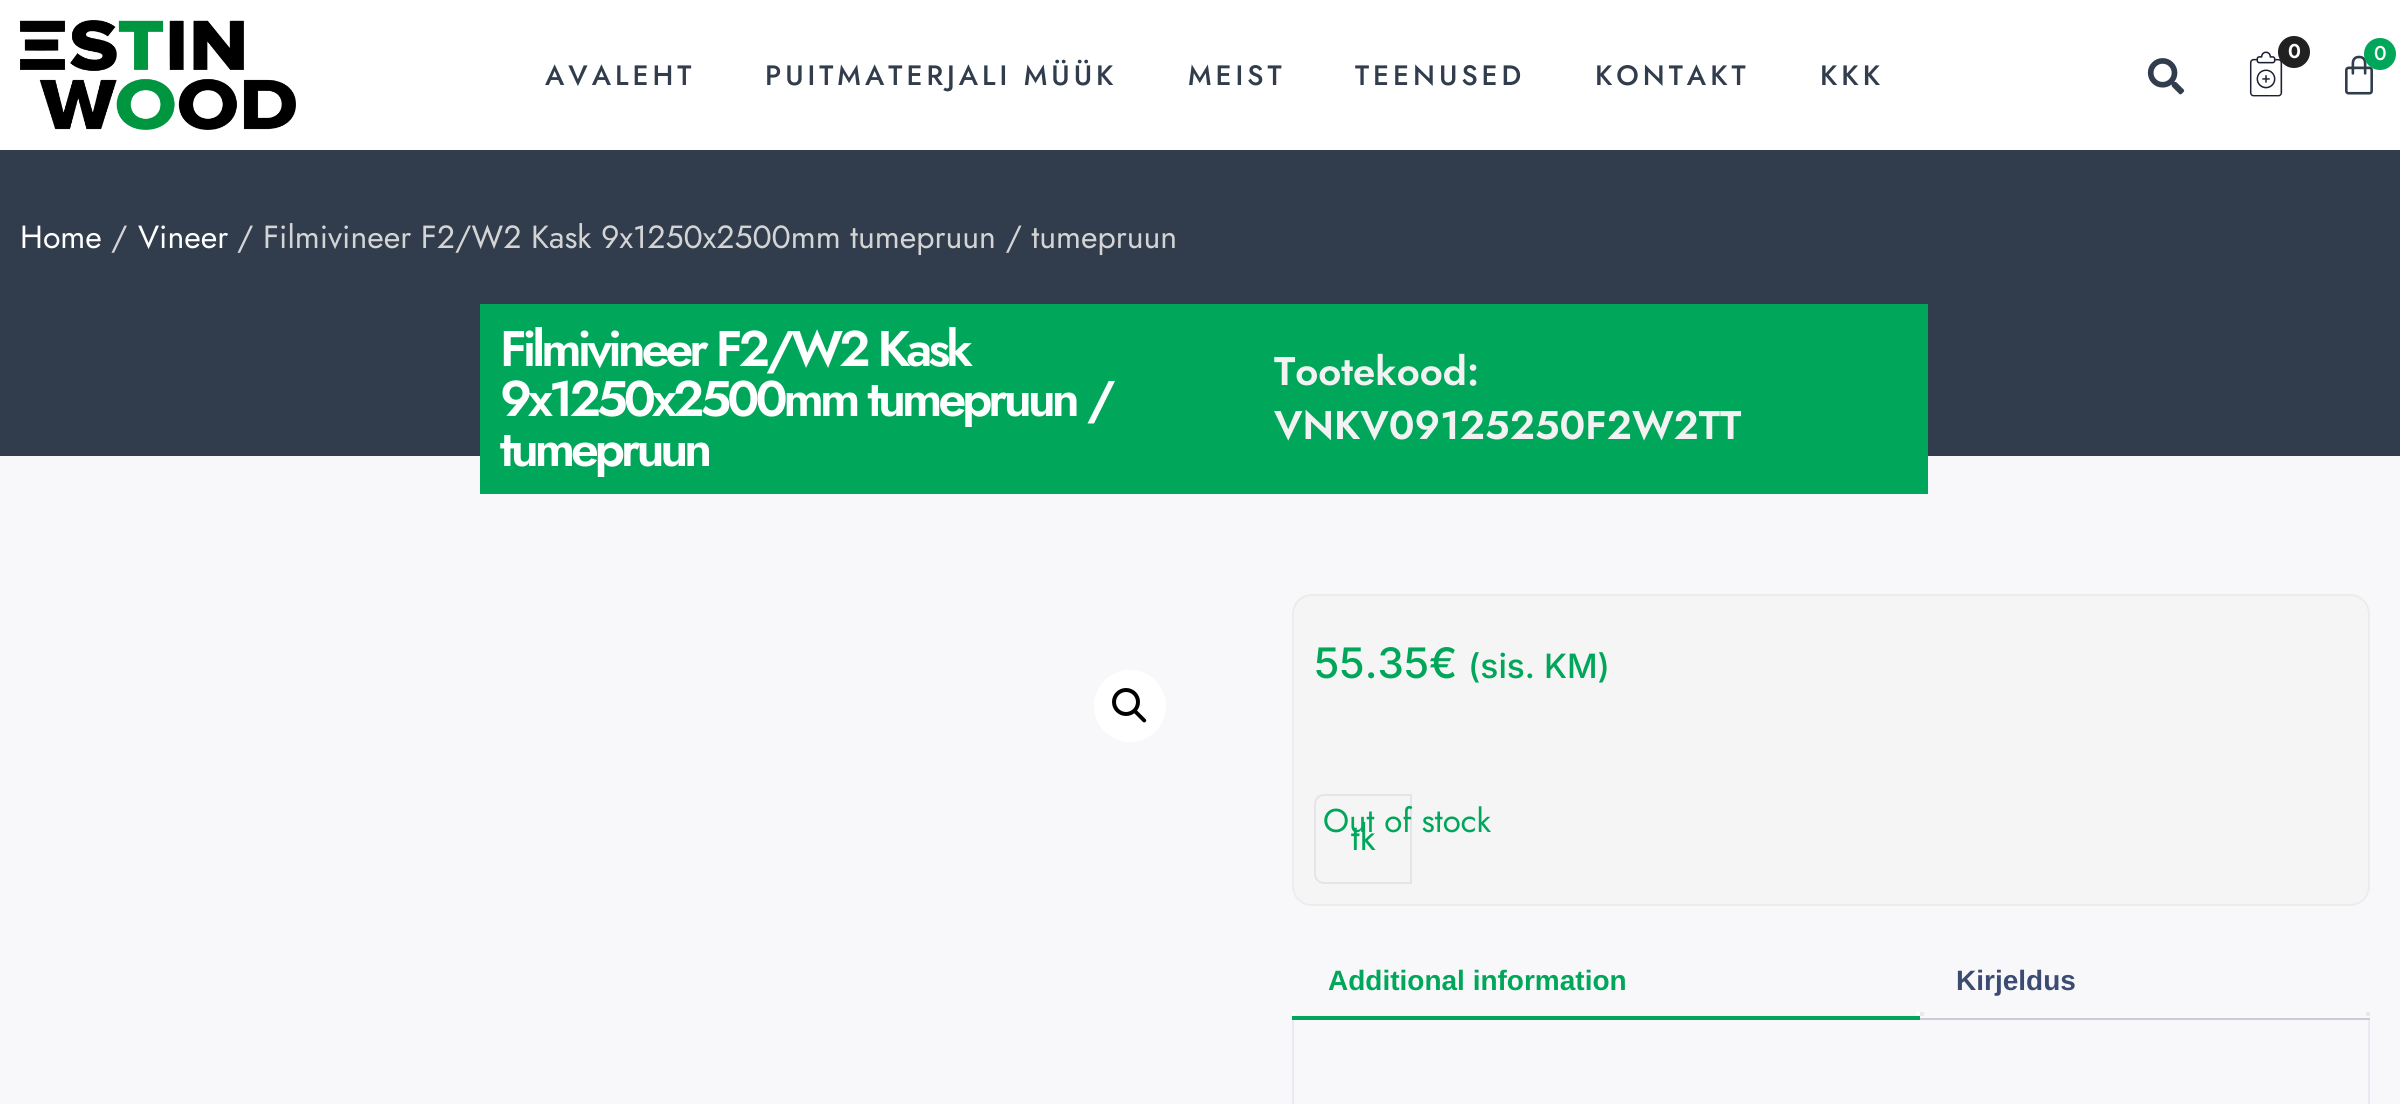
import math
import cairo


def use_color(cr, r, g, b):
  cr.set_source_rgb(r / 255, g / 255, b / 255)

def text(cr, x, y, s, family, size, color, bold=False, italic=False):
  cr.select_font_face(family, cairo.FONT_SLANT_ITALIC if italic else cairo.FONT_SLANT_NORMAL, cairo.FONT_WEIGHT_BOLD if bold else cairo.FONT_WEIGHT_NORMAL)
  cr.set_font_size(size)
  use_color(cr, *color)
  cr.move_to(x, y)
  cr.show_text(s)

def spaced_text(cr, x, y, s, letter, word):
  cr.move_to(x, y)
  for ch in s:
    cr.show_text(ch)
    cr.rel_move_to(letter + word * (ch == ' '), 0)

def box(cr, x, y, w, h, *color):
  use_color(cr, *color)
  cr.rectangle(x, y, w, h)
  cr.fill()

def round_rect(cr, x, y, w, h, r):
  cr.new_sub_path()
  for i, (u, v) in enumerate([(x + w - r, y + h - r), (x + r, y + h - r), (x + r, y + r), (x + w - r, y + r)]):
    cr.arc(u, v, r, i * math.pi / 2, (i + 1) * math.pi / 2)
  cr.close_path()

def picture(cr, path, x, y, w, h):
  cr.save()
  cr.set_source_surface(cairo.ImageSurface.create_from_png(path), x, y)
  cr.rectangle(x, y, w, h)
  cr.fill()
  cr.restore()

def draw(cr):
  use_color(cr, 248, 248, 250)
  cr.paint()
  box(cr, 0, 0, 2400, 150, 255, 255, 255)
  picture(cr, "img_01.png", 2249, 51, 34, 46)
  use_color(cr, 33, 33, 33)
  cr.arc(2294, 52, 16, 0, 2 * math.pi)
  cr.fill()
  picture(cr, "img_02.png", 2345, 55, 28, 40)
  use_color(cr, 0, 166, 89)
  cr.arc(2380, 54, 16, 0, 2 * math.pi)
  cr.fill()
  picture(cr, "img_03.png", 2147, 58, 38, 37)
  picture(cr, "img_04.png", 20, 20, 276, 110)
  box(cr, 0, 150, 2400, 306, 49, 61, 77)
  box(cr, 480, 304, 1448, 190, 0, 166, 89)
  use_color(cr, 255, 255, 255)
  cr.arc(1130, 706, 36, 0, 2 * math.pi)
  cr.fill()
  cr.arc(1126, 702, 12, 0, 2 * math.pi)
  use_color(cr, 0, 0, 0)
  cr.set_line_width(4)
  cr.stroke()
  cr.new_path()
  cr.move_to(1134.5, 710.5)
  cr.curve_to(1135, 710, 1136.5, 710, 1137, 710.5)
  cr.line_to(1145.5, 719)
  cr.curve_to(1146.5, 720, 1146.5, 721, 1145.5, 722)
  cr.curve_to(1145, 722.5, 1143.5, 722.5, 1143, 722)
  cr.line_to(1134.5, 713.5)
  cr.curve_to(1133.5, 712.5, 1133.5, 711.5, 1134.5, 710.5)
  cr.close_path()
  cr.fill()
  use_color(cr, 245, 245, 245)
  round_rect(cr, 1293, 595, 1076, 310, 19)
  cr.fill_preserve()
  use_color(cr, 236, 236, 236)
  cr.set_line_width(2)
  cr.stroke()
  cr.new_path()
  cr.move_to(1324, 795)
  cr.line_to(1411, 795)
  cr.line_to(1411, 883)
  cr.line_to(1324, 883)
  cr.curve_to(1319, 883, 1315, 879, 1315, 874)
  cr.line_to(1315, 804)
  cr.curve_to(1315, 799, 1319, 795, 1324, 795)
  cr.close_path()
  use_color(cr, 228, 228, 234)
  cr.stroke()
  box(cr, 1292, 1016, 628, 4, 0, 166, 89)
  cr.save()
  cr.rectangle(1292, 946, 628, 70)
  cr.clip()
  use_color(cr, 255, 255, 255)
  cr.new_path()
  cr.move_to(1286, 1017.5)
  cr.line_to(1286, 1022)
  cr.curve_to(1293, 1022, 1296, 1019, 1296, 1012)
  cr.line_to(1291.5, 1012)
  cr.curve_to(1291, 1015, 1289, 1017, 1286, 1017.5)
  cr.close_path()
  cr.fill()
  cr.new_path()
  cr.move_to(1916, 1012)
  cr.curve_to(1916, 1019, 1919, 1022, 1926, 1022)
  cr.line_to(1926, 1017.5)
  cr.curve_to(1923, 1017, 1921, 1015, 1920.5, 1012)
  cr.close_path()
  cr.fill()
  cr.restore()
  cr.save()
  cr.rectangle(1920, 946, 450, 70)
  cr.clip()
  use_color(cr, 233, 230, 237)
  cr.new_path()
  cr.move_to(1914, 1017.5)
  cr.line_to(1914, 1022)
  cr.curve_to(1921, 1022, 1924, 1019, 1924, 1012)
  cr.line_to(1919.5, 1012)
  cr.curve_to(1919, 1015, 1917, 1017, 1914, 1017.5)
  cr.close_path()
  cr.fill()
  cr.new_path()
  cr.move_to(2366, 1012)
  cr.curve_to(2366, 1019, 2369, 1022, 2376, 1022)
  cr.line_to(2376, 1017.5)
  cr.curve_to(2373, 1017, 2371, 1015, 2370.5, 1012)
  cr.close_path()
  cr.fill()
  cr.restore()
  box(cr, 1920, 1018, 450, 2, 207, 200, 216)
  box(cr, 2368, 1020, 2, 84, 233, 233, 242)
  box(cr, 1292, 1020, 2, 84, 233, 233, 242)
  text(cr, 2288, 58, "0", "Jost SemiBold", 20, (255, 255, 255))
  text(cr, 2374, 60, "0", "Jost Medium", 20, (255, 255, 255))
  cr.set_font_size(28)
  use_color(cr, 49, 61, 77)
  spaced_text(cr, 545, 85, "AVALEHT", 4, 0)
  spaced_text(cr, 765, 85, "PUITMATERJALI MÜÜK", 4, 0)
  spaced_text(cr, 1188, 85, "MEIST", 4, 0)
  spaced_text(cr, 1355, 85, "TEENUSED", 4, 0)
  spaced_text(cr, 1595, 85, "KONTAKT", 4, 0)
  spaced_text(cr, 1820, 85, "KKK", 4, 0)
  text(cr, 20, 248, "Home", "Jost", 32, (255, 255, 255))
  text(cr, 111, 248, "/", "Jost", 32, (212, 212, 212))
  text(cr, 138, 248, "Vineer", "Jost", 32, (255, 255, 255))
  text(cr, 237, 248, "/ Filmivineer F2/W2 Kask 9x1250x2500mm tumepruun / tumepruun", "Jost", 32, (212, 212, 212))
  cr.select_font_face("Jost SemiBold")
  cr.set_font_size(50)
  use_color(cr, 255, 255, 255)
  spaced_text(cr, 500, 366, "Filmivineer F2/W2 Kask", -4, 0)
  spaced_text(cr, 500, 416, "9x1250x2500mm tumepruun /", -4, 0)
  spaced_text(cr, 500, 466, "tumepruun", -4, 0)
  text(cr, 1274, 385, "Tootekood:", "Jost SemiBold", 40, (242, 242, 242))
  text(cr, 1274, 439, "VNKV09125250F2W2TT", "Jost SemiBold", 40, (242, 242, 242))
  text(cr, 1314, 678, "55.35€", "Inter Medium", 42, (0, 166, 89))
  text(cr, 1468, 678, "(sis. KM)", "Inter Medium", 33.5, (0, 166, 89))
  text(cr, 1351, 850, "tk", "Jost", 36, (0, 166, 89))
  text(cr, 1323, 832, "Out of stock", "Jost", 33, (0, 166, 89))
  text(cr, 1328, 990, "Additional information", "Liberation Sans", 28, (0, 166, 89), bold=True)
  text(cr, 1956, 990, "Kirjeldus", "Liberation Sans", 28, (60, 75, 113), bold=True)


surface = cairo.ImageSurface(cairo.FORMAT_RGB24, 2400, 1104)
cr = cairo.Context(surface)
options = cairo.FontOptions()
options.set_hint_metrics(cairo.HINT_METRICS_OFF)
options.set_hint_style(cairo.HINT_STYLE_NONE)
cr.set_font_options(options)
cr.set_miter_limit(4)
draw(cr)
surface.write_to_png("out.png")
